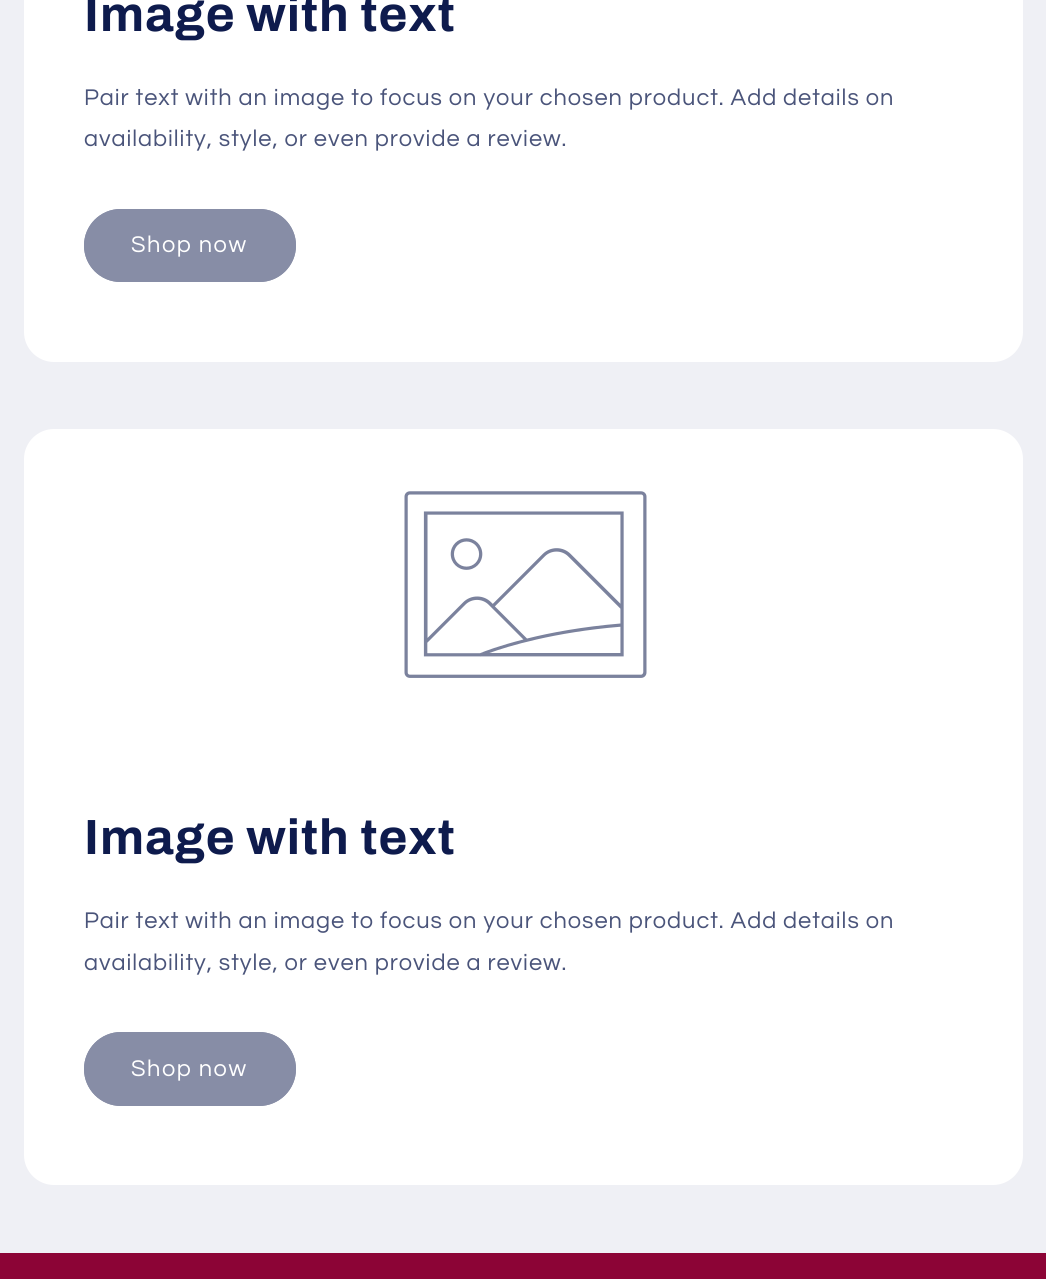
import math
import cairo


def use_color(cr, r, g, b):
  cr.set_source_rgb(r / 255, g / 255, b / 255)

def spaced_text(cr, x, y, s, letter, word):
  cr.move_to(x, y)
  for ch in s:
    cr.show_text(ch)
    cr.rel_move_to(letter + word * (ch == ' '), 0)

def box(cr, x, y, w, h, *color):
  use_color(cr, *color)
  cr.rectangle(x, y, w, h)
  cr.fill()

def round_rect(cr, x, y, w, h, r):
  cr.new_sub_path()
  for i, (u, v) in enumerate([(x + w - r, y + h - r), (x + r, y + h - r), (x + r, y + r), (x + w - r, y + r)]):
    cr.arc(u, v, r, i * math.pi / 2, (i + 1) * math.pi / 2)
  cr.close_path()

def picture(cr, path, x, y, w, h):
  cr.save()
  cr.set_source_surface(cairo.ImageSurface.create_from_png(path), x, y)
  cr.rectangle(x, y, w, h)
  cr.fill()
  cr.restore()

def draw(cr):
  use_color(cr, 239, 240, 245)
  cr.paint()
  use_color(cr, 255, 255, 255)
  cr.new_path()
  cr.move_to(24, -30)
  cr.line_to(1023, -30)
  cr.line_to(1023, 332)
  cr.curve_to(1023, 348.5, 1009.5, 362, 993, 362)
  cr.line_to(54, 362)
  cr.curve_to(37.5, 362, 24, 348.5, 24, 332)
  cr.close_path()
  cr.fill()
  use_color(cr, 135, 141, 166)
  round_rect(cr, 84, 209, 212, 73, 36.5)
  cr.fill()
  round_rect(cr, 85, 210, 210, 71, 35.5)
  cr.stroke()
  use_color(cr, 255, 255, 255)
  cr.new_path()
  cr.move_to(54, 429)
  cr.line_to(993, 429)
  cr.curve_to(1009.5, 429, 1023, 442.5, 1023, 459)
  cr.line_to(1023, 744)
  cr.line_to(24, 744)
  cr.line_to(24, 459)
  cr.curve_to(24, 442.5, 37.5, 429, 54, 429)
  cr.close_path()
  cr.fill()
  picture(cr, "img_01.png", 404, 491, 243, 187)
  cr.new_path()
  cr.move_to(24, 744)
  cr.line_to(1023, 744)
  cr.line_to(1023, 1155)
  cr.curve_to(1023, 1171.5, 1009.5, 1185, 993, 1185)
  cr.line_to(54, 1185)
  cr.curve_to(37.5, 1185, 24, 1171.5, 24, 1155)
  cr.close_path()
  cr.fill()
  use_color(cr, 135, 141, 166)
  round_rect(cr, 84, 1032, 212, 74, 37)
  cr.fill()
  round_rect(cr, 85, 1033, 210, 72, 36)
  cr.stroke()
  box(cr, 0, 1253, 1046, 26, 140, 4, 54)
  cr.select_font_face("Archivo", cairo.FONT_SLANT_NORMAL, cairo.FONT_WEIGHT_BOLD)
  cr.set_font_size(49.5)
  use_color(cr, 14, 27, 77)
  spaced_text(cr, 84, 31, "Image with text", 1, 0)
  cr.select_font_face("Questrial")
  cr.set_font_size(23.6)
  use_color(cr, 74, 84, 122)
  spaced_text(cr, 84, 105, "Pair text with an image to focus on your chosen product. Add details on", 0.95, 0)
  spaced_text(cr, 84, 146, "availability, style, or even provide a review.", 0.95, 0)
  use_color(cr, 255, 255, 255)
  spaced_text(cr, 131, 252, "Shop now", 1.5, 0)
  cr.select_font_face("Archivo", cairo.FONT_SLANT_NORMAL, cairo.FONT_WEIGHT_BOLD)
  cr.set_font_size(49.5)
  use_color(cr, 14, 27, 77)
  spaced_text(cr, 84, 854, "Image with text", 1, 0)
  cr.select_font_face("Questrial")
  cr.set_font_size(23.6)
  use_color(cr, 74, 84, 122)
  spaced_text(cr, 84, 928, "Pair text with an image to focus on your chosen product. Add details on", 0.95, 0)
  spaced_text(cr, 84, 970, "availability, style, or even provide a review.", 0.95, 0)
  use_color(cr, 255, 255, 255)
  spaced_text(cr, 131, 1076, "Shop now", 1.5, 0)


surface = cairo.ImageSurface(cairo.FORMAT_RGB24, 1046, 1279)
cr = cairo.Context(surface)
options = cairo.FontOptions()
options.set_hint_metrics(cairo.HINT_METRICS_OFF)
options.set_hint_style(cairo.HINT_STYLE_NONE)
cr.set_font_options(options)
cr.set_miter_limit(4)
draw(cr)
surface.write_to_png("out.png")
